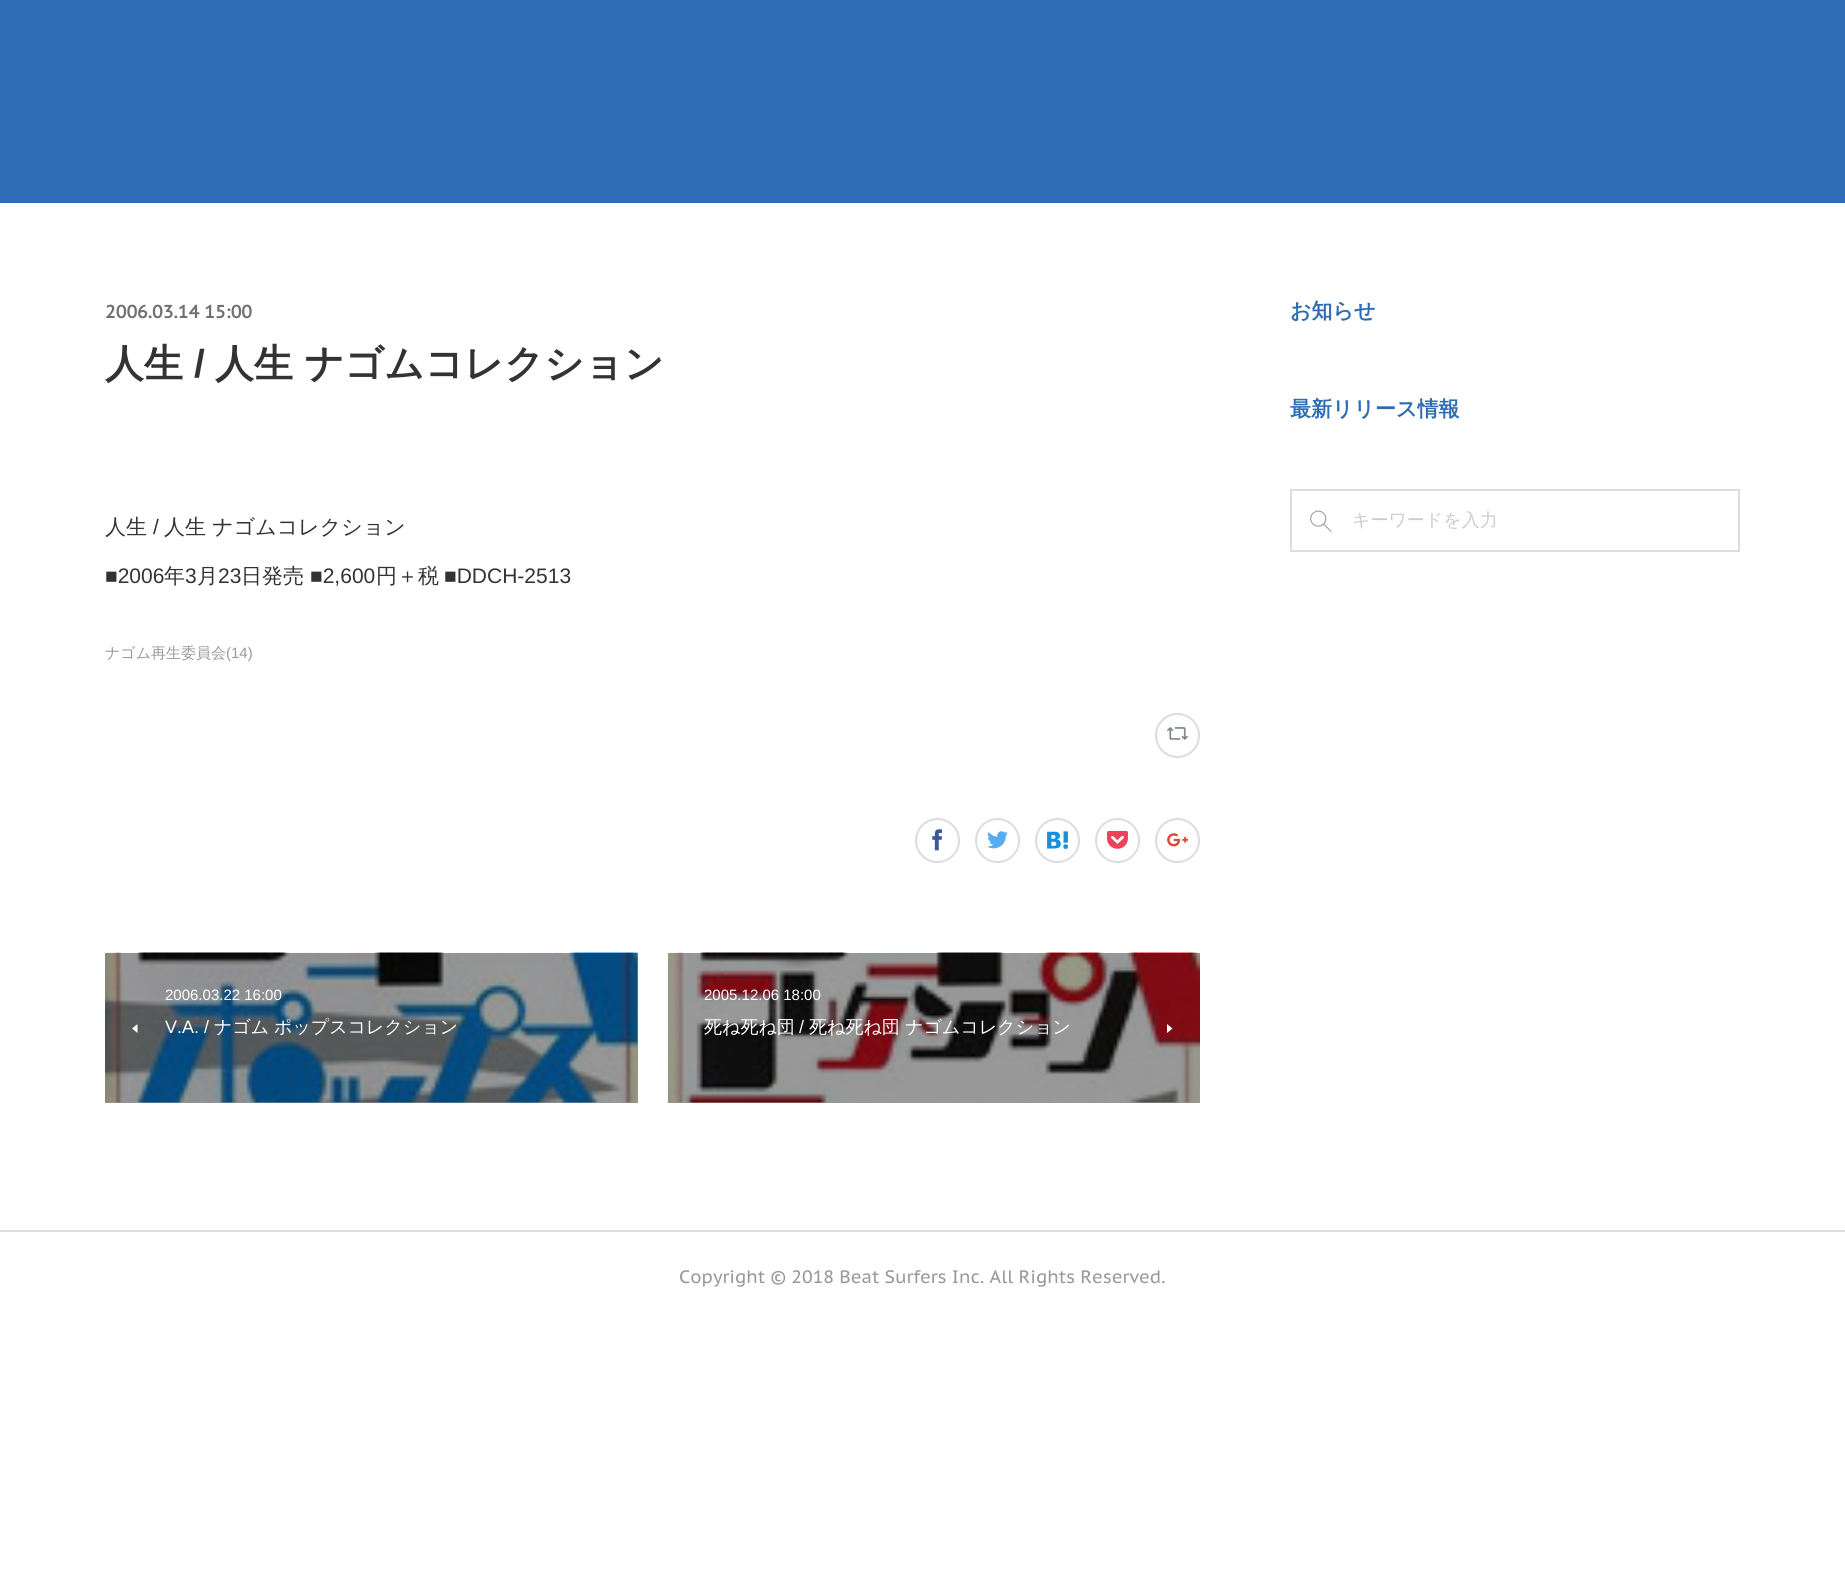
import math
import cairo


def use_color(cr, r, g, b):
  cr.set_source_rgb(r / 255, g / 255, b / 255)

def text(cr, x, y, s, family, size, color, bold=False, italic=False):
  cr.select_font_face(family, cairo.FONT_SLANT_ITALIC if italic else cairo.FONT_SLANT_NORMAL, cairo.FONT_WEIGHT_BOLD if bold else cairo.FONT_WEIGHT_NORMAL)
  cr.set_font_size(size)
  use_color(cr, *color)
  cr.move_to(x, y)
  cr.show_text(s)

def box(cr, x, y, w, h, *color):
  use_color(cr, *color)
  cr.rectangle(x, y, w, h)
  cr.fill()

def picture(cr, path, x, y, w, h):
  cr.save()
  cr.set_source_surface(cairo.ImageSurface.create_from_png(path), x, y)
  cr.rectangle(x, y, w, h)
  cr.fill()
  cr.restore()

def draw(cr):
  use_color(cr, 255, 255, 255)
  cr.paint()
  box(cr, 668, 1102, 532, 1, 153, 153, 153)
  box(cr, 105, 953, 533, 150, 153, 153, 153)
  box(cr, 0, 0, 1845, 203, 46, 108, 181)
  cr.arc(1177.5, 735.5, 21.5, 0, 2 * math.pi)
  use_color(cr, 221, 221, 221)
  cr.stroke()
  picture(cr, "img_01.png", 1167, 727, 21, 13)
  cr.arc(937.5, 840.5, 21.5, 0, 2 * math.pi)
  cr.stroke()
  picture(cr, "img_02.png", 932, 829, 10, 22)
  cr.arc(997.5, 840.5, 21.5, 0, 2 * math.pi)
  cr.stroke()
  picture(cr, "img_03.png", 987, 831, 21, 18)
  cr.arc(1057.5, 840.5, 21.5, 0, 2 * math.pi)
  cr.stroke()
  picture(cr, "img_04.png", 1047, 831, 21, 18)
  cr.arc(1117.5, 840.5, 21.5, 0, 2 * math.pi)
  cr.stroke()
  picture(cr, "img_05.png", 1107, 830, 21, 19)
  cr.arc(1177.5, 840.5, 21.5, 0, 2 * math.pi)
  cr.stroke()
  picture(cr, "img_06.png", 1167, 833, 22, 14)
  picture(cr, "img_07.png", 105, 952, 533, 151)
  use_color(cr, 255, 255, 255)
  cr.new_path()
  cr.move_to(137.5, 1033)
  cr.line_to(137.5, 1024)
  cr.line_to(132, 1028.5)
  cr.close_path()
  cr.fill()
  picture(cr, "img_08.png", 667, 952, 533, 151)
  cr.new_path()
  cr.move_to(1167, 1024)
  cr.line_to(1167, 1033)
  cr.line_to(1172.5, 1028.5)
  cr.close_path()
  cr.fill()
  cr.rectangle(1291, 490, 448, 61)
  use_color(cr, 221, 221, 221)
  cr.stroke()
  picture(cr, "img_09.png", 1310, 510, 22, 22)
  box(cr, 0, 1230, 1845, 2, 221, 221, 221)
  text(cr, 105, 318, "2006.03.14 15:00", "PT Sans Caption", 18, (112, 112, 112), bold=True)
  text(cr, 105, 377, "人生", "WenQuanYi Zen Hei", 39, (51, 51, 51), bold=True)
  text(cr, 194, 377, "/", "Liberation Sans", 39, (51, 51, 51), bold=True)
  text(cr, 215, 377, "人生 ナゴムコレクション", "WenQuanYi Zen Hei", 39, (51, 51, 51), bold=True)
  text(cr, 105, 534, "人生", "WenQuanYi Zen Hei Medium", 21, (51, 51, 51))
  text(cr, 153, 534, "/", "Liberation Sans", 21, (51, 51, 51))
  text(cr, 164, 534, "人生 ナゴムコレクション", "WenQuanYi Zen Hei Medium", 21, (51, 51, 51))
  text(cr, 105, 583, "■2006", "Liberation Sans", 21, (51, 51, 51))
  text(cr, 164, 583, "年", "WenQuanYi Zen Hei Medium", 21, (51, 51, 51))
  text(cr, 185, 583, "3", "Liberation Sans", 21, (51, 51, 51))
  text(cr, 197, 583, "月", "WenQuanYi Zen Hei Medium", 21, (51, 51, 51))
  text(cr, 218, 583, "23", "Liberation Sans", 21, (51, 51, 51))
  text(cr, 241, 583, "日発売", "WenQuanYi Zen Hei Medium", 21, (51, 51, 51))
  text(cr, 310, 583, "■2,600", "Liberation Sans", 21, (51, 51, 51))
  text(cr, 376, 583, "円＋税", "WenQuanYi Zen Hei Medium", 21, (51, 51, 51))
  text(cr, 444, 583, "■DDCH-2513", "Liberation Sans", 21, (51, 51, 51))
  text(cr, 105, 658, "ナゴム再生委員会", "WenQuanYi Zen Hei Medium", 15, (153, 153, 153))
  text(cr, 226, 658, "(14)", "Liberation Sans", 15, (153, 153, 153))
  text(cr, 165, 1000, "2006.03.22 16:00", "Liberation Sans", 15, (255, 255, 255))
  text(cr, 165, 1033, "V.A. /", "Liberation Sans", 18, (255, 255, 255))
  text(cr, 214, 1033, "ナゴム", "WenQuanYi Zen Hei Medium", 18, (255, 255, 255))
  text(cr, 274, 1033, "ポップスコレクション", "WenQuanYi Zen Hei Medium", 18, (255, 255, 255))
  text(cr, 704, 1000, "2005.12.06 18:00", "Liberation Sans", 15, (255, 255, 255))
  text(cr, 704, 1033, "死ね死ね団", "WenQuanYi Zen Hei Medium", 18, (255, 255, 255))
  text(cr, 799, 1033, "/", "Liberation Sans", 18, (255, 255, 255))
  text(cr, 809, 1033, "死ね死ね団 ナゴムコレクション", "WenQuanYi Zen Hei Medium", 18, (255, 255, 255))
  text(cr, 1290, 318, "お知らせ", "WenQuanYi Zen Hei", 21, (46, 108, 181), bold=True)
  text(cr, 1290, 416, "最新リリース情報", "WenQuanYi Zen Hei", 21, (46, 108, 181), bold=True)
  text(cr, 1352, 526, "キーワードを入力", "WenQuanYi Zen Hei Medium", 18, (204, 204, 204))
  text(cr, 679, 1283, "Copyright © 2018 Beat Surfers Inc. All Rights Reserved.", "PT Sans Caption", 18, (153, 153, 153))


surface = cairo.ImageSurface(cairo.FORMAT_RGB24, 1845, 1579)
cr = cairo.Context(surface)
options = cairo.FontOptions()
options.set_hint_metrics(cairo.HINT_METRICS_OFF)
options.set_hint_style(cairo.HINT_STYLE_NONE)
cr.set_font_options(options)
cr.set_miter_limit(4)
draw(cr)
surface.write_to_png("out.png")
